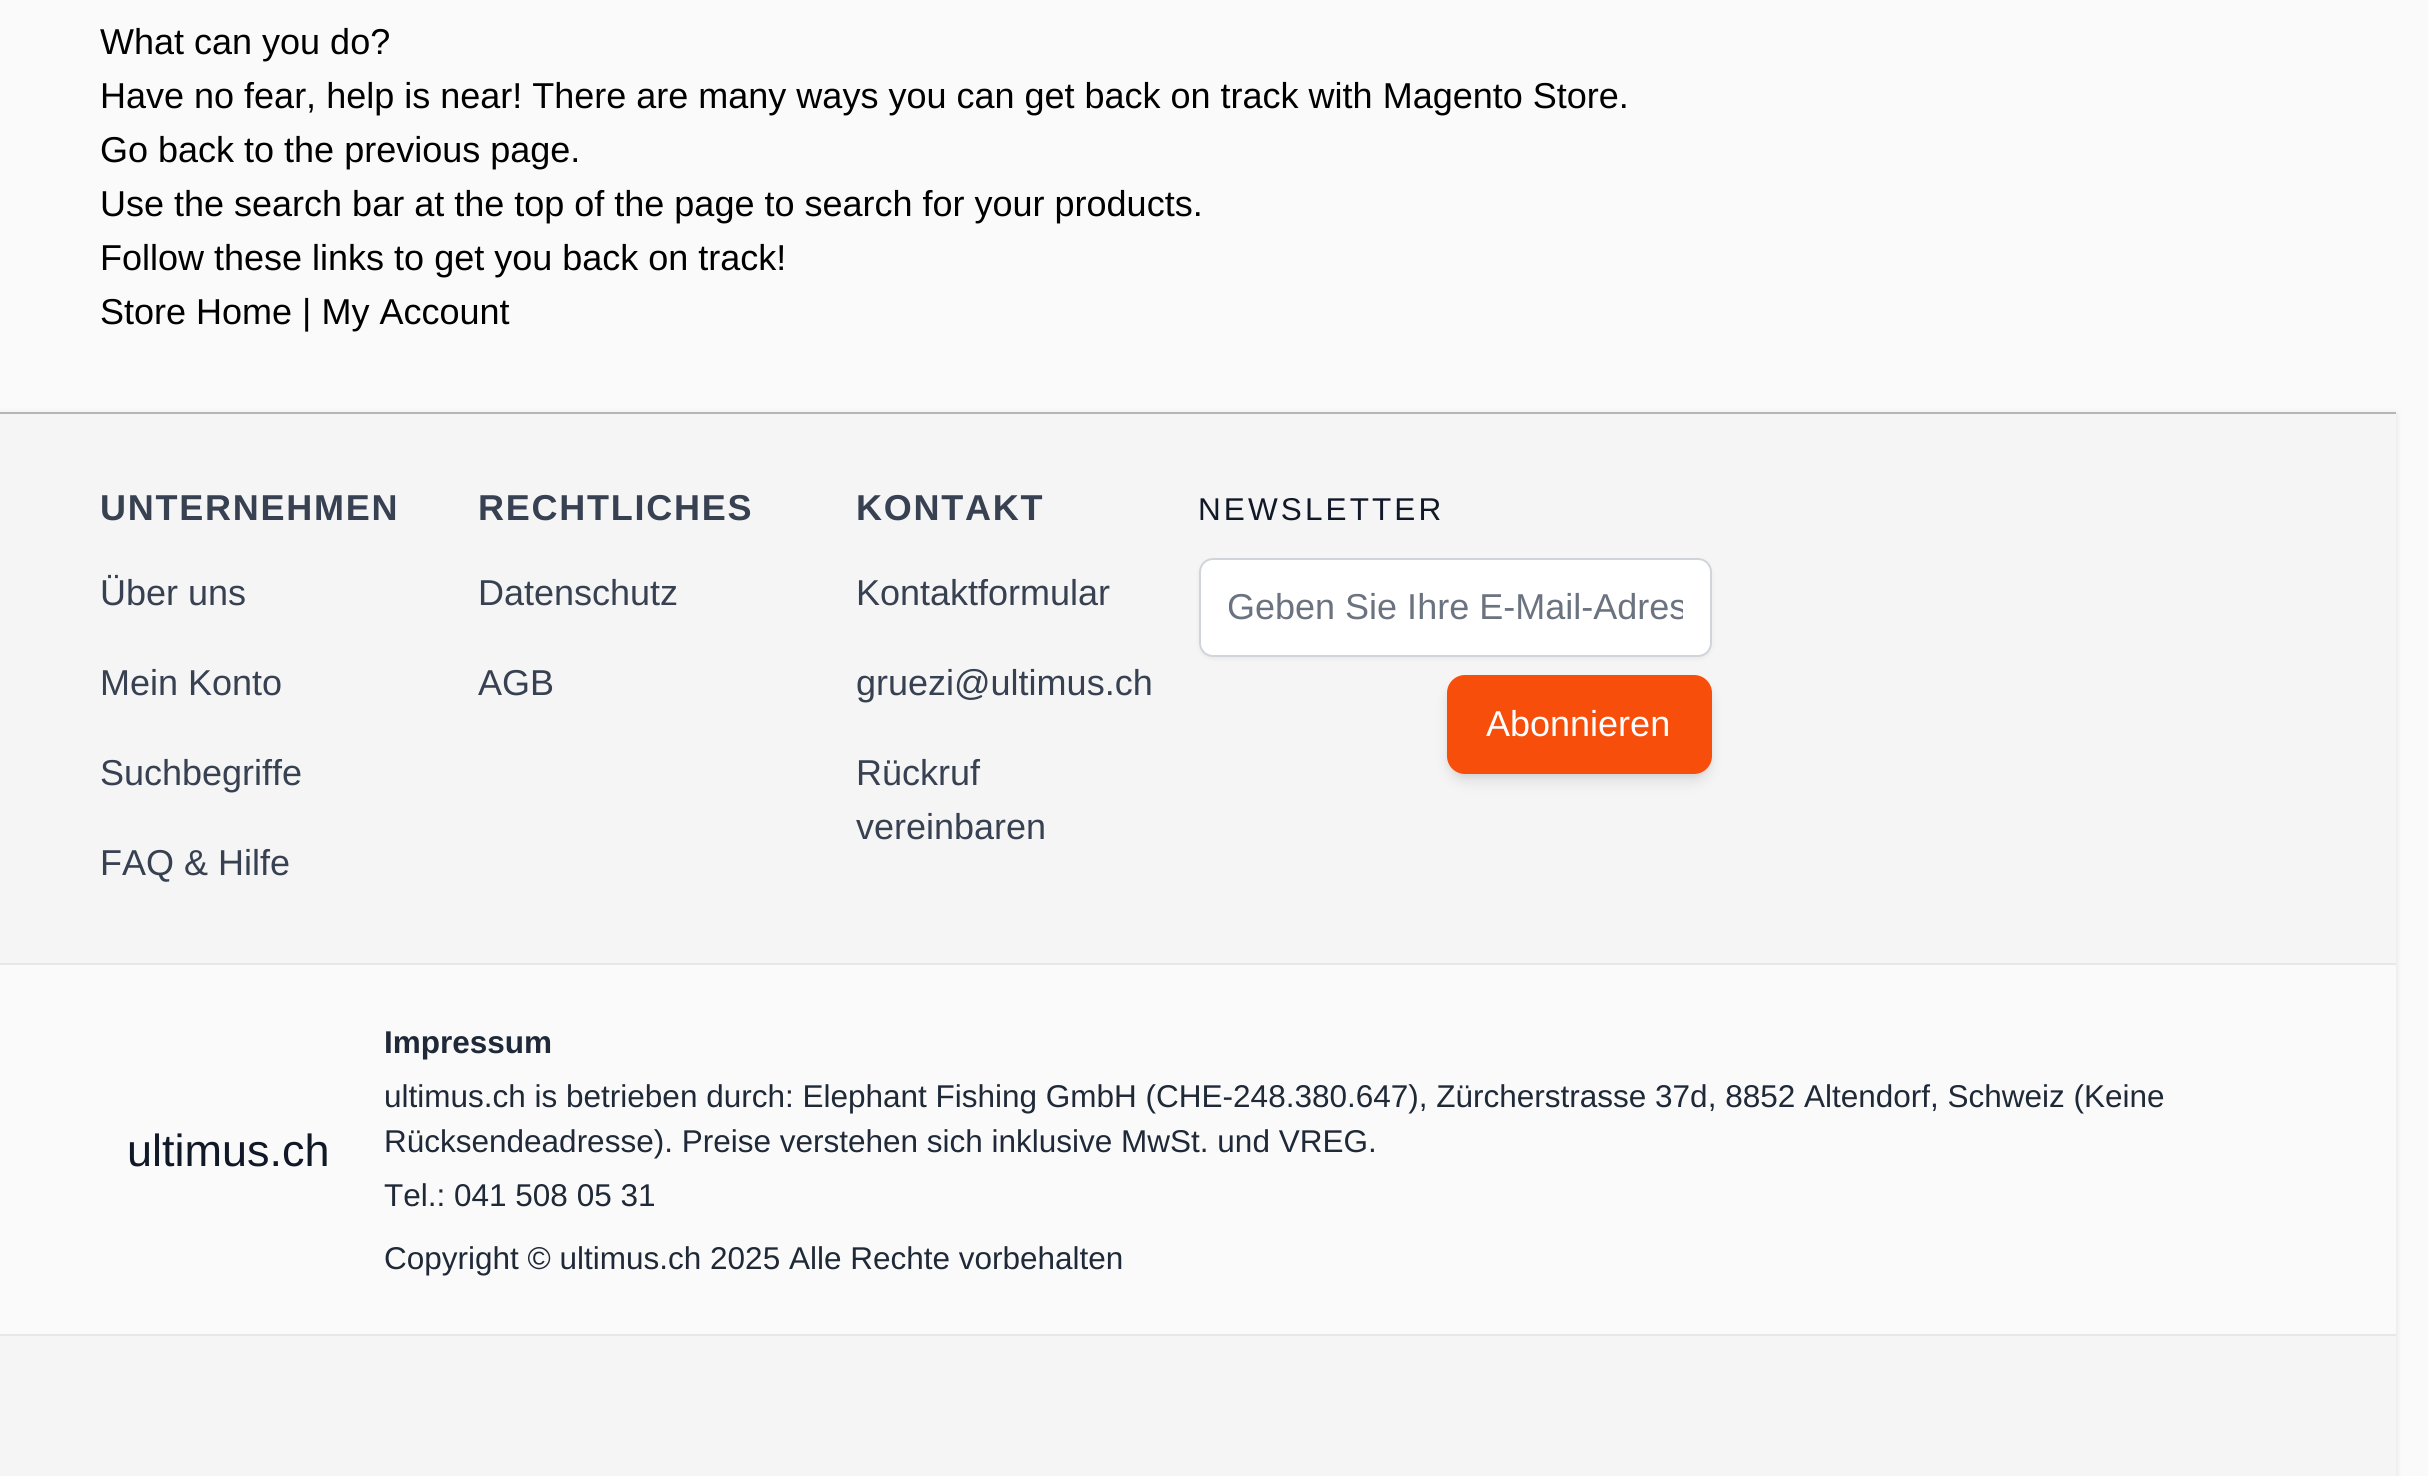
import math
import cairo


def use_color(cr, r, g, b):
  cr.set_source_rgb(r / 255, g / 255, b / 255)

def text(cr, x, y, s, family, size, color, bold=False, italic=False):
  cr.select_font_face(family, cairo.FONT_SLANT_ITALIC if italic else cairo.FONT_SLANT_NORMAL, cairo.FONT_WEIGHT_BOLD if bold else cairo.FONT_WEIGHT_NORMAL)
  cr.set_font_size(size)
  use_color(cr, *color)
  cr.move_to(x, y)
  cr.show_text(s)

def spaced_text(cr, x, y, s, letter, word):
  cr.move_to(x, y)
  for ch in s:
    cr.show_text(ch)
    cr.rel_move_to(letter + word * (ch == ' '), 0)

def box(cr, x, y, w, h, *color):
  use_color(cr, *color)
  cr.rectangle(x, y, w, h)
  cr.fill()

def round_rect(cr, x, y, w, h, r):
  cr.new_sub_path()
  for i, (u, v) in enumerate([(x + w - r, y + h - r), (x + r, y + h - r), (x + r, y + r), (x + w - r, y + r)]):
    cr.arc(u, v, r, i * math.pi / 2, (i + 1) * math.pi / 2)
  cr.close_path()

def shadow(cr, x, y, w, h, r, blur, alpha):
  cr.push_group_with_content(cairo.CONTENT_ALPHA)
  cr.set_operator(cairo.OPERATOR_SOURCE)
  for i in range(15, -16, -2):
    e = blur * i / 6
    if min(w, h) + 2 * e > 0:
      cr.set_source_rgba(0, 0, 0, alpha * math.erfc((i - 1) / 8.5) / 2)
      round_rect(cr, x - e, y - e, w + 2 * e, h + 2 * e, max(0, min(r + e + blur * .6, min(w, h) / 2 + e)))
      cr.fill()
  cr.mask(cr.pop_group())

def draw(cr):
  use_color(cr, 250, 250, 250)
  cr.paint()
  use_color(cr, 0, 0, 0)
  shadow(cr, 0, 414, 2396, 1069, 0, 3.5, 0.1)
  box(cr, 0, 414, 2396, 1062, 245, 245, 245)
  box(cr, 0, 412, 2396, 2, 182, 182, 182)
  use_color(cr, 0, 0, 0)
  shadow(cr, 1199, 560, 513, 99, 14, 2, 0.05)
  use_color(cr, 255, 255, 255)
  round_rect(cr, 1200, 559, 511, 97, 13)
  cr.fill_preserve()
  use_color(cr, 209, 213, 219)
  cr.stroke()
  use_color(cr, 0, 0, 0)
  shadow(cr, 1451, 684, 257, 90, 14, 4.5, 0.1)
  shadow(cr, 1449, 686, 261, 95, 16, 7, 0.1)
  use_color(cr, 248, 78, 12)
  round_rect(cr, 1447, 675, 265, 99, 18)
  cr.fill()
  box(cr, 0, 965, 2396, 369, 250, 250, 250)
  box(cr, 0, 963, 2396, 2, 231, 231, 231)
  box(cr, 0, 1334, 2396, 2, 231, 231, 231)
  text(cr, 100, 54, "What can you do?", "Liberation Sans", 36, (0, 0, 0))
  text(cr, 100, 108, "Have no fear, help is near! There are many ways you can get back on track with Magento Store.", "Liberation Sans", 36, (0, 0, 0))
  text(cr, 100, 162, "Go back to the previous page.", "Liberation Sans", 36, (0, 0, 0))
  text(cr, 100, 216, "Use the search bar at the top of the page to search for your products.", "Liberation Sans", 36, (0, 0, 0))
  text(cr, 100, 270, "Follow these links to get you back on track!", "Liberation Sans", 36, (0, 0, 0))
  text(cr, 100, 324, "Store Home | My Account", "Liberation Sans", 36, (0, 0, 0))
  cr.select_font_face("Liberation Sans", cairo.FONT_SLANT_NORMAL, cairo.FONT_WEIGHT_BOLD)
  use_color(cr, 55, 65, 81)
  spaced_text(cr, 100, 520, "UNTERNEHMEN", 1.75, 0)
  text(cr, 100, 605, "Über uns", "Liberation Sans", 36, (55, 65, 81))
  text(cr, 100, 695, "Mein Konto", "Liberation Sans", 36, (55, 65, 81))
  text(cr, 100, 785, "Suchbegriffe", "Liberation Sans", 36, (55, 65, 81))
  text(cr, 100, 875, "FAQ & Hilfe", "Liberation Sans", 36, (55, 65, 81))
  cr.select_font_face("Liberation Sans", cairo.FONT_SLANT_NORMAL, cairo.FONT_WEIGHT_BOLD)
  spaced_text(cr, 478, 520, "RECHTLICHES", 1.75, 0)
  text(cr, 478, 605, "Datenschutz", "Liberation Sans", 36, (55, 65, 81))
  text(cr, 478, 695, "AGB", "Liberation Sans", 36, (55, 65, 81))
  cr.select_font_face("Liberation Sans", cairo.FONT_SLANT_NORMAL, cairo.FONT_WEIGHT_BOLD)
  spaced_text(cr, 856, 520, "KONTAKT", 1.75, 0)
  text(cr, 856, 605, "Kontaktformular", "Liberation Sans", 36, (55, 65, 81))
  text(cr, 856, 695, "gruezi@ultimus.ch", "Liberation Sans", 36, (55, 65, 81))
  text(cr, 856, 785, "Rückruf", "Liberation Sans", 36, (55, 65, 81))
  text(cr, 856, 839, "vereinbaren", "Liberation Sans", 36, (55, 65, 81))
  cr.set_font_size(31.5)
  use_color(cr, 17, 24, 39)
  spaced_text(cr, 1198, 520, "NEWSLETTER", 3.1, 0)
  cr.save()
  cr.rectangle(1229, 587, 454, 41)
  cr.clip()
  text(cr, 1227, 619, "Geben Sie Ihre E-Mail-Adres", "Liberation Sans", 36, (107, 114, 128))
  cr.restore()
  text(cr, 1486, 736, "Abonnieren", "Liberation Sans", 36, (255, 255, 255))
  text(cr, 127, 1166, "ultimus.ch", "Liberation Sans", 45, (17, 24, 39))
  text(cr, 384, 1053, "Impressum", "Liberation Sans", 31.5, (31, 41, 55), bold=True)
  text(cr, 384, 1107, "ultimus.ch is betrieben durch: Elephant Fishing GmbH (CHE-248.380.647), Zürcherstrasse 37d, 8852 Altendorf, Schweiz (Keine", "Liberation Sans", 31.5, (31, 41, 55))
  text(cr, 384, 1152, "Rücksendeadresse). Preise verstehen sich inklusive MwSt. und VREG.", "Liberation Sans", 31.5, (31, 41, 55))
  text(cr, 384, 1206, "Tel.: 041 508 05 31", "Liberation Sans", 31.5, (31, 41, 55))
  text(cr, 384, 1269, "Copyright © ultimus.ch 2025 Alle Rechte vorbehalten", "Liberation Sans", 31.5, (31, 41, 55))


surface = cairo.ImageSurface(cairo.FORMAT_RGB24, 2428, 1476)
cr = cairo.Context(surface)
options = cairo.FontOptions()
options.set_hint_metrics(cairo.HINT_METRICS_OFF)
options.set_hint_style(cairo.HINT_STYLE_NONE)
cr.set_font_options(options)
cr.set_miter_limit(4)
draw(cr)
surface.write_to_png("out.png")
